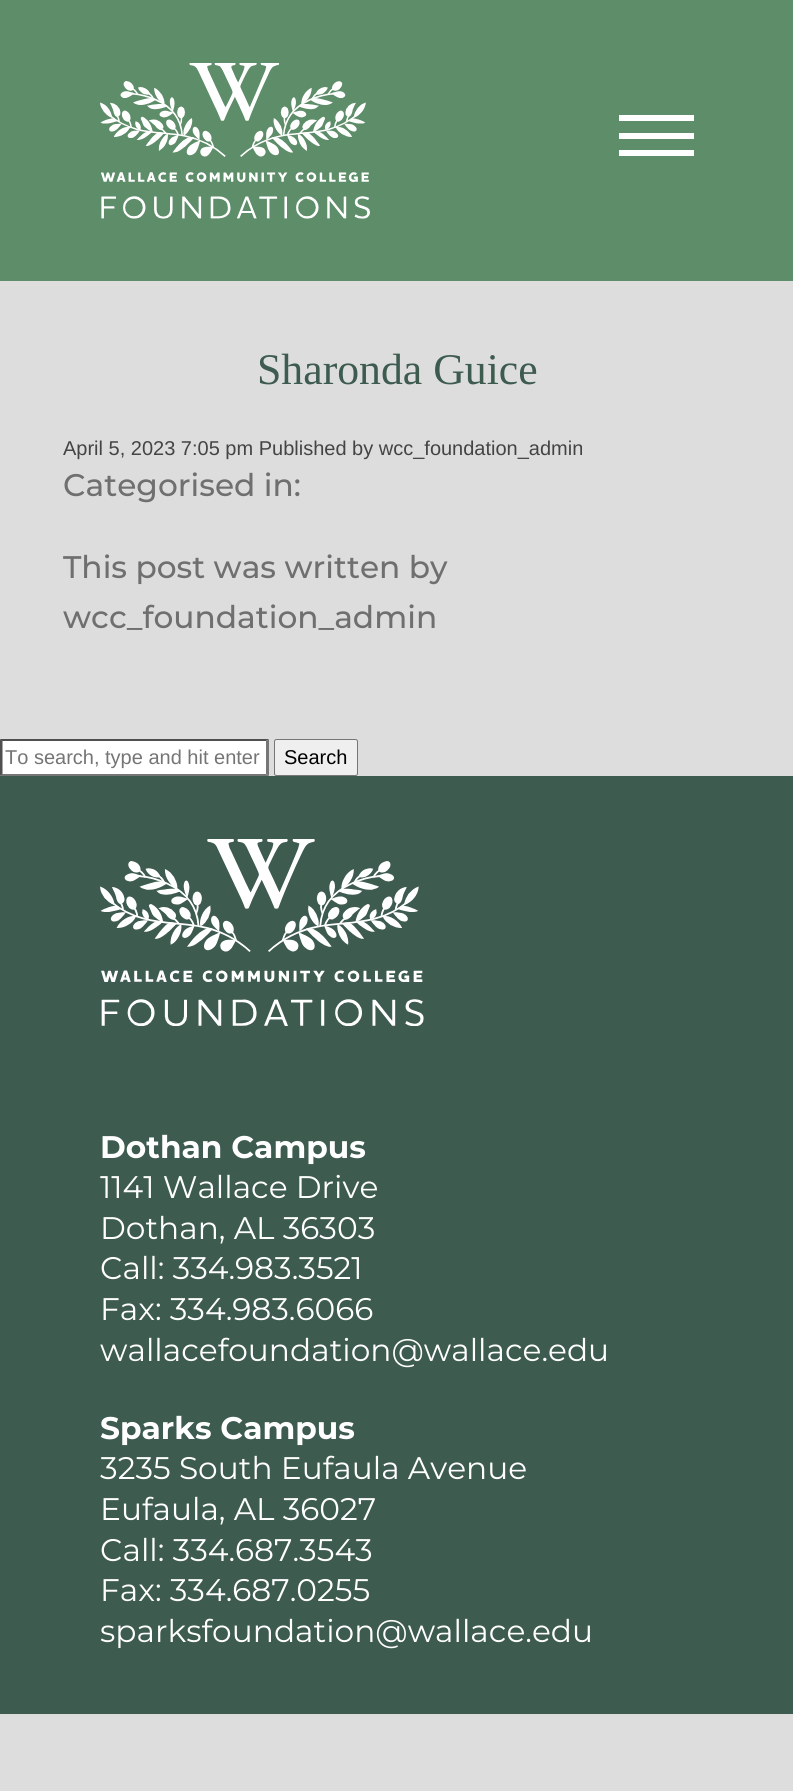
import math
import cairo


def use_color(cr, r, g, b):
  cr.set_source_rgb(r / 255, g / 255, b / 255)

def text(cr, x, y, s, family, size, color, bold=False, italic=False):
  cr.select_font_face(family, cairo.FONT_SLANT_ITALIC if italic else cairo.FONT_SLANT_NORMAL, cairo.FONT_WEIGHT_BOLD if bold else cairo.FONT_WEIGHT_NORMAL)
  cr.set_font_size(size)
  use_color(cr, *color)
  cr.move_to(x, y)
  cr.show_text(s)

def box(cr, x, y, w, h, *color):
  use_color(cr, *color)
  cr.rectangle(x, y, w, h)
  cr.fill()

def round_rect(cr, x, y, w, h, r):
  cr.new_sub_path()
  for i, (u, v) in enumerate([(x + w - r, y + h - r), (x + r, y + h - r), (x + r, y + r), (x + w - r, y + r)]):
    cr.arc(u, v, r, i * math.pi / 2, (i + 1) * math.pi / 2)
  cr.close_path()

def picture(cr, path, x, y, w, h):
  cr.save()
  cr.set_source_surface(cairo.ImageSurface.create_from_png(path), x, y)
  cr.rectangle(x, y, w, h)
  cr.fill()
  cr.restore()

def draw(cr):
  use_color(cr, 221, 221, 221)
  cr.paint()
  box(cr, 0, 0, 793, 281, 94, 141, 105)
  picture(cr, "img_01.png", 100, 63, 270, 156)
  box(cr, 619, 115, 75, 6, 255, 255, 255)
  box(cr, 619, 133, 75, 6, 255, 255, 255)
  box(cr, 619, 150, 75, 6, 255, 255, 255)
  box(cr, 0, 739, 269, 37, 255, 255, 255)
  use_color(cr, 79, 79, 79)
  cr.new_path()
  cr.move_to(0, 739)
  cr.line_to(269, 739)
  cr.line_to(266, 741)
  cr.line_to(2, 741)
  cr.close_path()
  cr.fill()
  use_color(cr, 118, 118, 118)
  cr.new_path()
  cr.move_to(269, 739)
  cr.line_to(269, 776)
  cr.line_to(266, 774)
  cr.line_to(266, 741)
  cr.close_path()
  cr.fill()
  cr.new_path()
  cr.move_to(269, 776)
  cr.line_to(0, 776)
  cr.line_to(2, 774)
  cr.line_to(266, 774)
  cr.close_path()
  cr.fill()
  use_color(cr, 79, 79, 79)
  cr.new_path()
  cr.move_to(0, 776)
  cr.line_to(0, 739)
  cr.line_to(2.5, 741)
  cr.line_to(2.5, 774)
  cr.close_path()
  cr.fill()
  use_color(cr, 239, 239, 239)
  round_rect(cr, 274.5, 739.5, 83, 36, 2)
  cr.fill_preserve()
  use_color(cr, 118, 118, 118)
  cr.set_line_width(1)
  cr.stroke()
  box(cr, 0, 776, 793, 938, 61, 91, 78)
  picture(cr, "img_02.png", 100, 839, 324, 187)
  text(cr, 257, 384, "Sharonda Guice", "Liberation Serif", 43.75, (61, 91, 78))
  text(cr, 63, 455, "April 5, 2023 7:05 pm Published by wcc_foundation_admin", "Liberation Sans", 20, (68, 68, 68))
  text(cr, 63, 496, "Categorised in:", "Montserrat Medium", 31.25, (111, 111, 111))
  text(cr, 63, 578, "This post was written by", "Montserrat Medium", 31.25, (111, 111, 111))
  text(cr, 63, 628, "wcc_foundation_admin", "Montserrat Medium", 31.25, (111, 111, 111))
  text(cr, 5, 764, "To search, type and hit enter", "Liberation Sans", 20, (117, 117, 117))
  text(cr, 284, 764, "Search", "Liberation Sans", 20, (0, 0, 0))
  text(cr, 100, 1158, "Dothan Campus", "Montserrat", 31.25, (255, 255, 255), bold=True)
  text(cr, 100, 1198, "1141 Wallace Drive", "Montserrat", 31.25, (255, 255, 255))
  text(cr, 100, 1239, "Dothan, AL 36303", "Montserrat", 31.25, (255, 255, 255))
  text(cr, 100, 1279, "Call: 334.983.3521", "Montserrat", 31.25, (255, 255, 255))
  text(cr, 100, 1320, "Fax: 334.983.6066", "Montserrat", 31.25, (255, 255, 255))
  text(cr, 100, 1361, "wallacefoundation@wallace.edu", "Montserrat", 31.25, (255, 255, 255))
  text(cr, 100, 1439, "Sparks Campus", "Montserrat", 31.25, (255, 255, 255), bold=True)
  text(cr, 100, 1479, "3235 South Eufaula Avenue", "Montserrat", 31.25, (255, 255, 255))
  text(cr, 100, 1520, "Eufaula, AL 36027", "Montserrat", 31.25, (255, 255, 255))
  text(cr, 100, 1561, "Call: 334.687.3543", "Montserrat", 31.25, (255, 255, 255))
  text(cr, 100, 1601, "Fax: 334.687.0255", "Montserrat", 31.25, (255, 255, 255))
  text(cr, 100, 1642, "sparksfoundation@wallace.edu", "Montserrat", 31.25, (255, 255, 255))


surface = cairo.ImageSurface(cairo.FORMAT_RGB24, 793, 1791)
cr = cairo.Context(surface)
options = cairo.FontOptions()
options.set_hint_metrics(cairo.HINT_METRICS_OFF)
options.set_hint_style(cairo.HINT_STYLE_NONE)
cr.set_font_options(options)
cr.set_miter_limit(4)
draw(cr)
surface.write_to_png("out.png")
